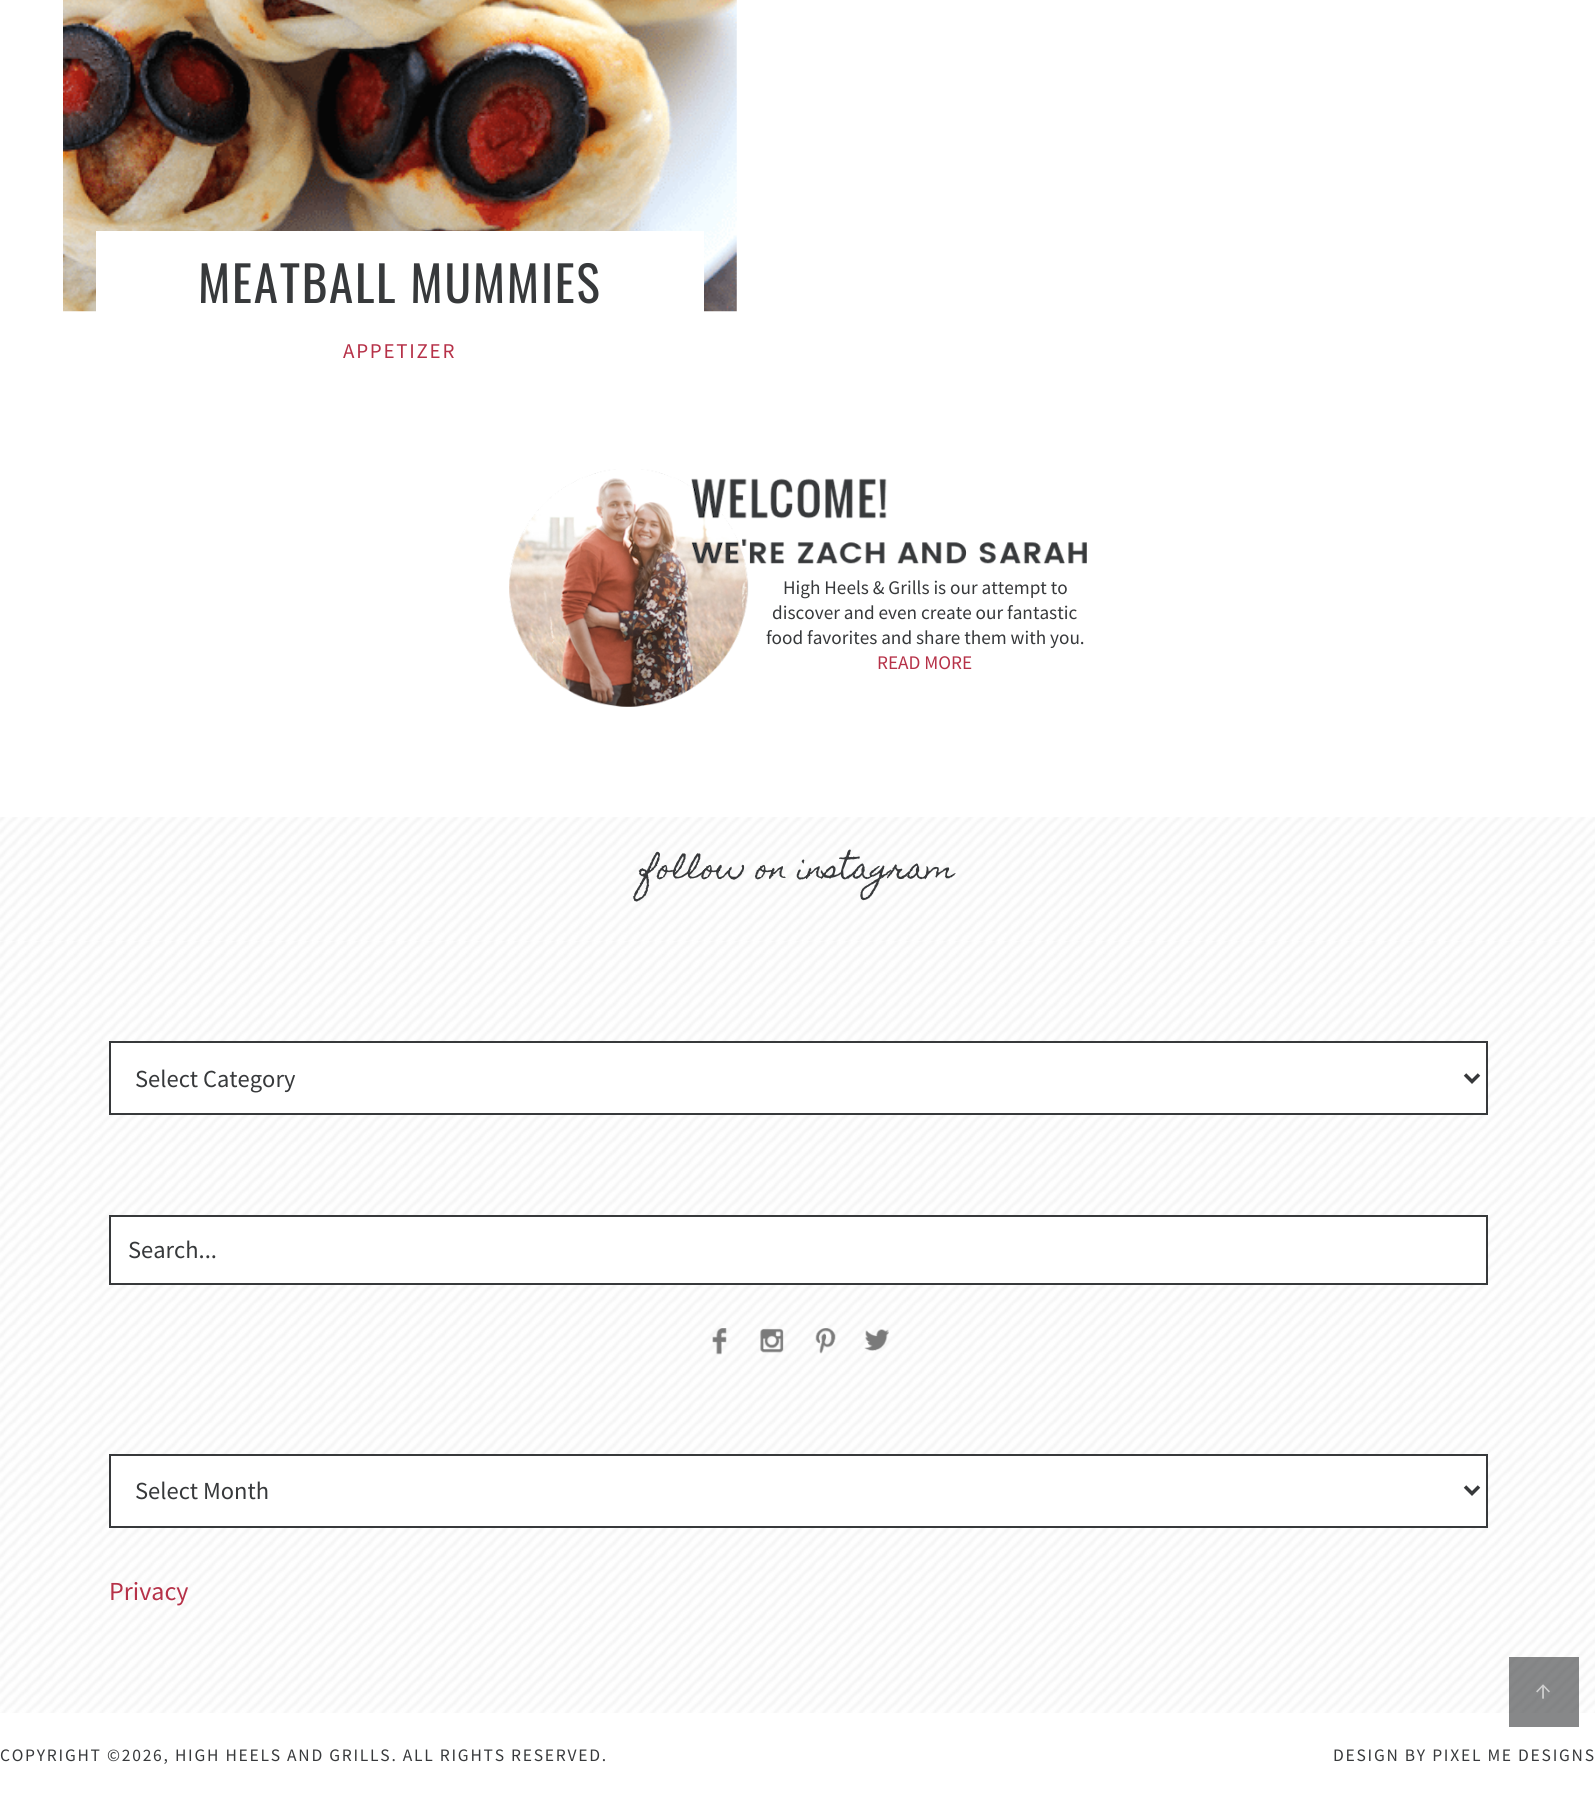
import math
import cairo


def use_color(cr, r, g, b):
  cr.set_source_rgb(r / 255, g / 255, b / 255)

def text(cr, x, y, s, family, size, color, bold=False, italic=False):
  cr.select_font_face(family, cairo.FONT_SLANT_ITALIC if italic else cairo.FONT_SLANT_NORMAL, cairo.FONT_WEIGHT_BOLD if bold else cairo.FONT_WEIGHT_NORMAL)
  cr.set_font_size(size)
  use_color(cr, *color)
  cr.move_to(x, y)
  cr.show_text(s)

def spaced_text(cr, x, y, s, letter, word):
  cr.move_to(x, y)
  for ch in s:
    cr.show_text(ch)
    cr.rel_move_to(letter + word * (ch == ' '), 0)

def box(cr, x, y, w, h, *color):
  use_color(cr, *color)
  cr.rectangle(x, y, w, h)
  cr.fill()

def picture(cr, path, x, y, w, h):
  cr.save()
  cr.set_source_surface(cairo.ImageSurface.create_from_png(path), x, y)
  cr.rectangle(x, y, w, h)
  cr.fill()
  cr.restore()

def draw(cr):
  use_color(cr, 255, 255, 255)
  cr.paint()
  picture(cr, "img_01.png", 63, 0, 674, 312)
  box(cr, 96, 231, 608, 81, 255, 255, 255)
  picture(cr, "img_02.png", 509, 469, 578, 238)
  picture(cr, "img_03.png", 0, 817, 1595, 124)
  picture(cr, "img_04.png", 0, 941, 1595, 772)
  cr.rectangle(110, 1042, 1377, 72)
  cr.fill_preserve()
  use_color(cr, 55, 57, 59)
  cr.stroke()
  cr.new_path()
  cr.move_to(1465, 1074.5)
  cr.line_to(1472, 1081.5)
  cr.line_to(1479, 1074.5)
  cr.set_line_width(3.5)
  cr.stroke()
  use_color(cr, 255, 255, 255)
  cr.rectangle(110, 1216, 1377, 68)
  cr.fill_preserve()
  use_color(cr, 55, 57, 59)
  cr.set_line_width(2)
  cr.stroke()
  picture(cr, "img_05.png", 712, 1328, 15, 27)
  picture(cr, "img_06.png", 760, 1328, 24, 25)
  picture(cr, "img_07.png", 815, 1328, 21, 26)
  picture(cr, "img_08.png", 864, 1329, 25, 22)
  use_color(cr, 255, 255, 255)
  cr.rectangle(110, 1455, 1377, 72)
  cr.fill_preserve()
  use_color(cr, 55, 57, 59)
  cr.stroke()
  cr.new_path()
  cr.move_to(1465, 1486.5)
  cr.line_to(1472, 1493.5)
  cr.line_to(1479, 1486.5)
  cr.set_line_width(3.5)
  cr.stroke()
  cr.set_source_rgba(0.216, 0.224, 0.231, 0.6)
  cr.rectangle(1509, 1657, 70, 70)
  cr.fill()
  cr.select_font_face("Oswald")
  cr.set_font_size(49)
  use_color(cr, 55, 57, 59)
  spaced_text(cr, 198, 303, "MEATBALL MUMMIES", 1.75, 0)
  cr.select_font_face("Source Sans Pro")
  cr.set_font_size(21)
  use_color(cr, 182, 49, 72)
  spaced_text(cr, 343, 358, "APPETIZER", 1.75, 0)
  text(cr, 783, 594, "High Heels & Grills is our attempt to", "Source Sans Pro", 19.25, (55, 57, 59))
  text(cr, 772, 619, "discover and even create our fantastic", "Source Sans Pro", 19.25, (55, 57, 59))
  text(cr, 766, 644, "food favorites and share them with you.", "Source Sans Pro", 19.25, (55, 57, 59))
  text(cr, 877, 669, "READ MORE", "Source Sans Pro", 19.25, (182, 49, 72))
  text(cr, 641, 878, "follow on instagram", "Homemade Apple", 28, (55, 57, 59))
  text(cr, 135, 1087, "Select Category", "Source Sans Pro", 24.5, (55, 57, 59))
  text(cr, 128, 1258, "Search...", "Source Sans Pro", 24.5, (55, 57, 59))
  text(cr, 135, 1499, "Select Month", "Source Sans Pro", 24.5, (55, 57, 59))
  text(cr, 109, 1600, "Privacy", "Source Sans Pro", 26, (182, 49, 72))
  cr.set_font_size(17.5)
  use_color(cr, 55, 57, 59)
  spaced_text(cr, 0, 1761, "COPYRIGHT ©2026, HIGH HEELS AND GRILLS. ALL RIGHTS RESERVED.", 1.75, 0)
  spaced_text(cr, 1333, 1761, "DESIGN BY PIXEL ME DESIGNS", 1.75, 0)
  text(cr, 1535, 1698, "↑", "Source Sans Pro", 26, (207, 207, 207))


surface = cairo.ImageSurface(cairo.FORMAT_RGB24, 1595, 1797)
cr = cairo.Context(surface)
options = cairo.FontOptions()
options.set_hint_metrics(cairo.HINT_METRICS_OFF)
options.set_hint_style(cairo.HINT_STYLE_NONE)
cr.set_font_options(options)
cr.set_miter_limit(4)
draw(cr)
surface.write_to_png("out.png")
